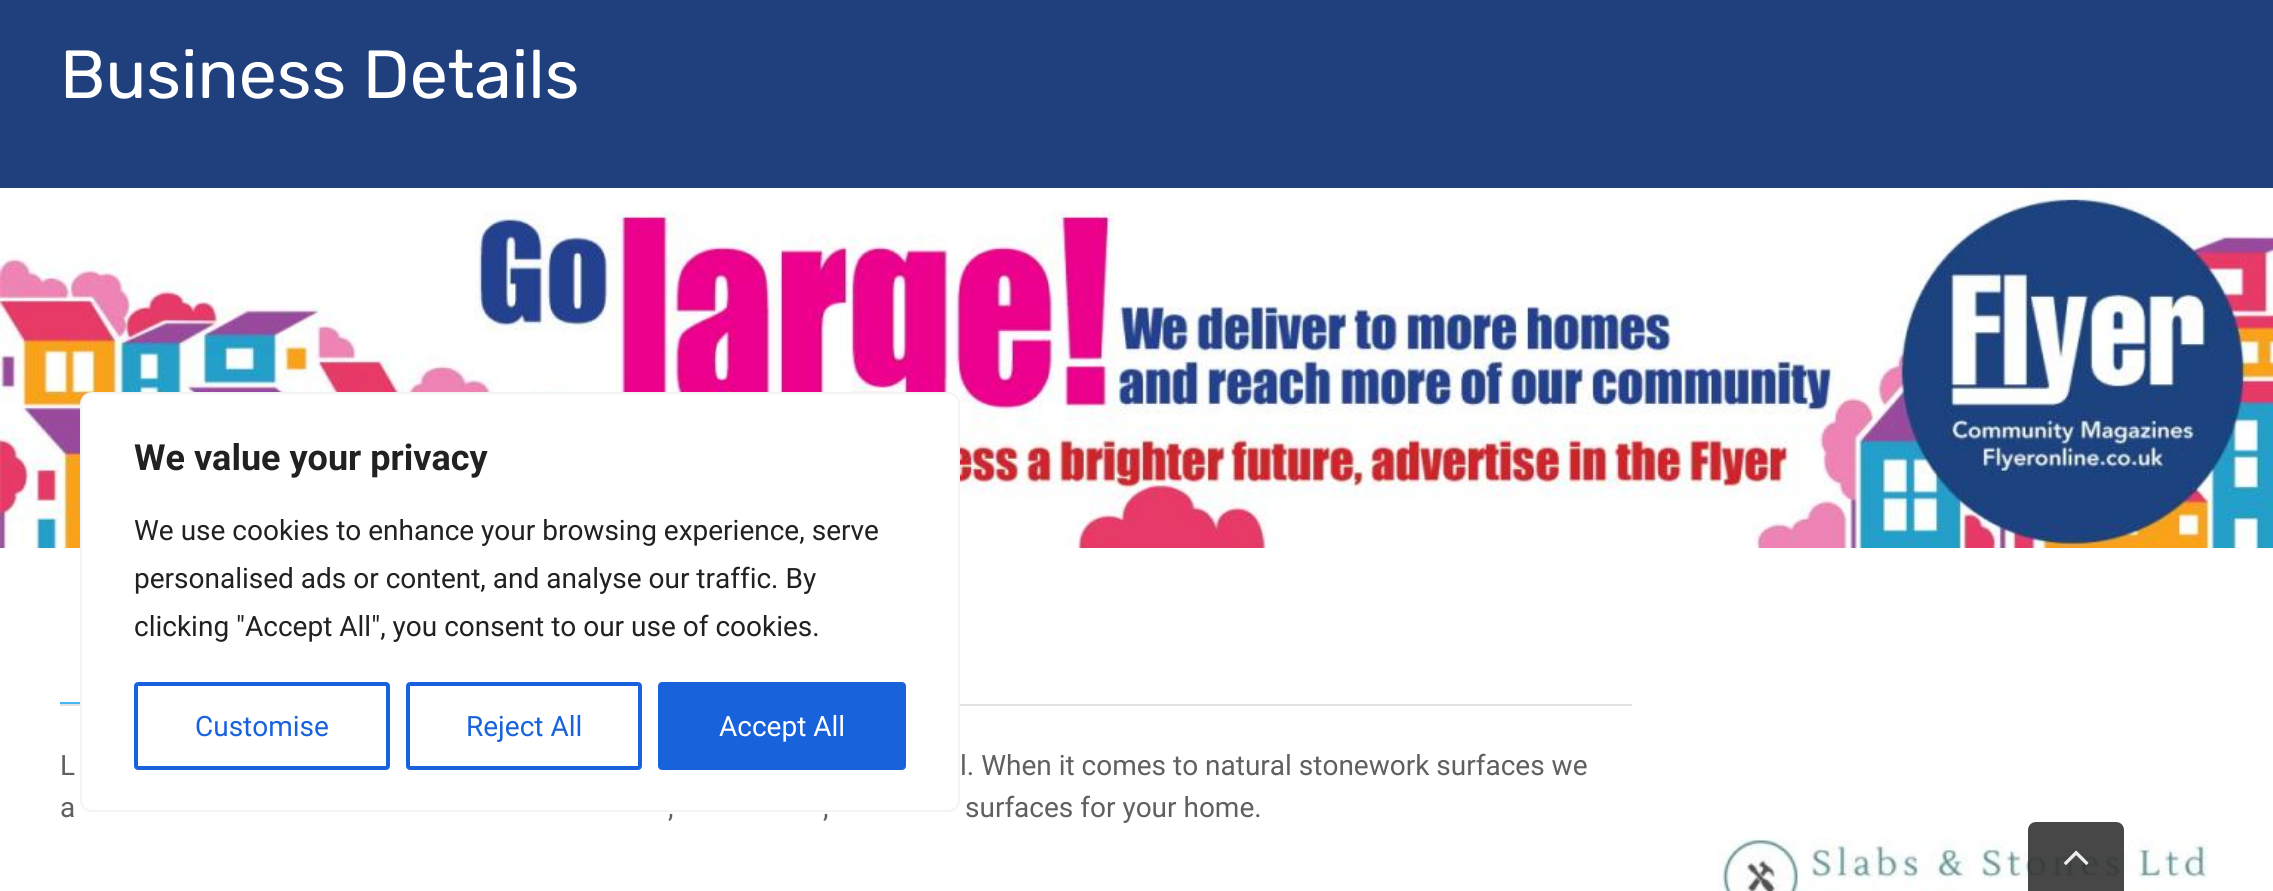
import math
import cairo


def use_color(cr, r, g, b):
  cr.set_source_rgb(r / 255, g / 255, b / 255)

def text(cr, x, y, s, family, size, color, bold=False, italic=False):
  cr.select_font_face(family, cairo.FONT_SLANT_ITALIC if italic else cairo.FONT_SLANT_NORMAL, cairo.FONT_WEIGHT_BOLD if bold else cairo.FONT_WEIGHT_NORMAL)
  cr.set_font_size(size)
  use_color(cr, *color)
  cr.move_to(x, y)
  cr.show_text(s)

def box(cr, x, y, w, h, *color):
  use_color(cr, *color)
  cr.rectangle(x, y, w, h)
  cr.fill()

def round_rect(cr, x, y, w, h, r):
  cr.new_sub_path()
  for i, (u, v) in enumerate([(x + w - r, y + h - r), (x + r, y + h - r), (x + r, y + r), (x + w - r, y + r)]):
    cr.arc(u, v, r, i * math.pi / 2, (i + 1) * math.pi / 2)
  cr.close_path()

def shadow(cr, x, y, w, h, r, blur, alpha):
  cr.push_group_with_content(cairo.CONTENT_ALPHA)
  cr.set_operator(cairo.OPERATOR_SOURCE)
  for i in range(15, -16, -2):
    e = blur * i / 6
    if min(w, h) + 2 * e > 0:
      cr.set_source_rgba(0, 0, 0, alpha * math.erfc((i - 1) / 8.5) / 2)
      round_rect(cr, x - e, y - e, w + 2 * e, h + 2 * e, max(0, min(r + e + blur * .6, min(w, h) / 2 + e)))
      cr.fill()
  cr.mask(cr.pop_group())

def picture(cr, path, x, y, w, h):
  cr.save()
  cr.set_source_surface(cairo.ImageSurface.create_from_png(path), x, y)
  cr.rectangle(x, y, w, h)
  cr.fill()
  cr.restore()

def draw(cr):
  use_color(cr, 255, 255, 255)
  cr.paint()
  box(cr, 0, 0, 2273, 188, 32, 64, 125)
  picture(cr, "img_01.png", 0, 188, 2273, 360)
  box(cr, 60, 704, 1572, 2, 226, 226, 226)
  box(cr, 60, 702, 20, 2, 69, 184, 242)
  picture(cr, "img_02.png", 1718, 837, 492, 54)
  cr.save()
  round_rect(cr, 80, 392, 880, 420, 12)
  cr.clip()
  use_color(cr, 172, 171, 171)
  shadow(cr, 80, 390, 880, 420, 12, 10, 0.3)
  cr.restore()
  use_color(cr, 255, 255, 255)
  round_rect(cr, 81, 393, 878, 418, 11)
  cr.fill_preserve()
  use_color(cr, 244, 244, 244)
  cr.stroke()
  round_rect(cr, 136, 684, 252, 84, 2)
  use_color(cr, 24, 99, 220)
  cr.set_line_width(4)
  cr.stroke()
  round_rect(cr, 408, 684, 232, 84, 2)
  cr.stroke()
  round_rect(cr, 660, 684, 244, 84, 2)
  cr.fill_preserve()
  cr.stroke()
  cr.set_source_rgba(0.2, 0.2, 0.2, 0.9)
  cr.new_path()
  cr.move_to(2036, 822)
  cr.line_to(2116, 822)
  cr.curve_to(2120.5, 822, 2124, 825.5, 2124, 830)
  cr.line_to(2124, 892)
  cr.line_to(2028, 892)
  cr.line_to(2028, 830)
  cr.curve_to(2028, 825.5, 2031.5, 822, 2036, 822)
  cr.close_path()
  cr.fill()
  picture(cr, "img_03.png", 2064, 850, 25, 15)
  text(cr, 60, 98, "Business Details", "Rubik", 68, (255, 255, 255))
  text(cr, 60, 775, "L", "Roboto", 28, (96, 96, 96))
  text(cr, 960, 775, "l. When it comes to natural stonework surfaces we", "Roboto", 28, (96, 96, 96))
  text(cr, 60, 817, "a", "Roboto", 28, (96, 96, 96))
  text(cr, 668, 817, ",", "Roboto", 28, (96, 96, 96))
  text(cr, 823, 817, ",", "Roboto", 28, (96, 96, 96))
  text(cr, 965, 817, "surfaces for your home.", "Roboto", 28, (96, 96, 96))
  text(cr, 134, 470, "We value your privacy", "Roboto", 36, (33, 33, 33), bold=True)
  text(cr, 134, 540, "We use cookies to enhance your browsing experience, serve", "Roboto", 28, (33, 33, 33))
  text(cr, 134, 588, "personalised ads or content, and analyse our traffic. By", "Roboto", 28, (33, 33, 33))
  text(cr, 134, 636, "clicking \"Accept All\", you consent to our use of cookies.", "Roboto", 28, (33, 33, 33))
  text(cr, 195, 736, "Customise", "Roboto", 28, (24, 99, 220))
  text(cr, 466, 736, "Reject All", "Roboto", 28, (24, 99, 220))
  text(cr, 719, 736, "Accept All", "Roboto", 28, (255, 255, 255))


surface = cairo.ImageSurface(cairo.FORMAT_RGB24, 2273, 891)
cr = cairo.Context(surface)
options = cairo.FontOptions()
options.set_hint_metrics(cairo.HINT_METRICS_OFF)
options.set_hint_style(cairo.HINT_STYLE_NONE)
cr.set_font_options(options)
cr.set_miter_limit(4)
draw(cr)
surface.write_to_png("out.png")
